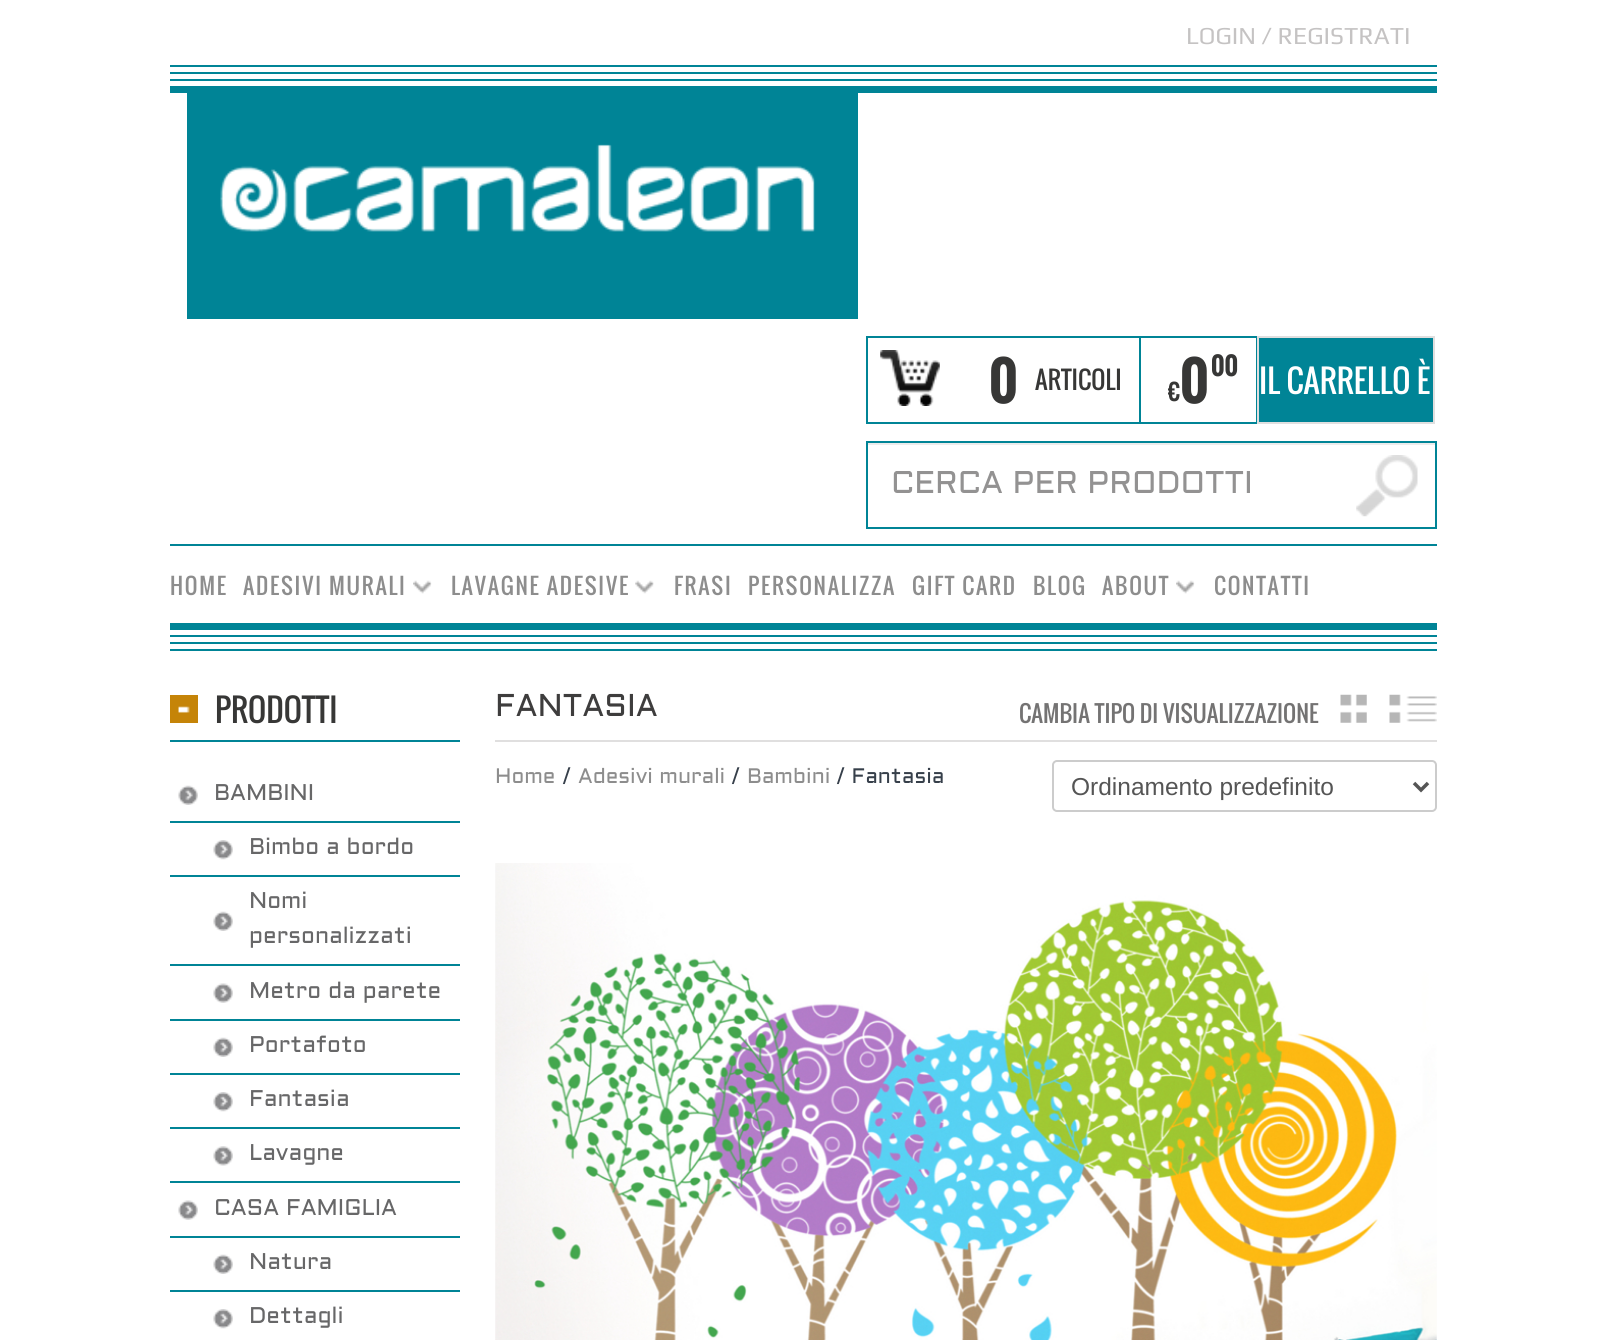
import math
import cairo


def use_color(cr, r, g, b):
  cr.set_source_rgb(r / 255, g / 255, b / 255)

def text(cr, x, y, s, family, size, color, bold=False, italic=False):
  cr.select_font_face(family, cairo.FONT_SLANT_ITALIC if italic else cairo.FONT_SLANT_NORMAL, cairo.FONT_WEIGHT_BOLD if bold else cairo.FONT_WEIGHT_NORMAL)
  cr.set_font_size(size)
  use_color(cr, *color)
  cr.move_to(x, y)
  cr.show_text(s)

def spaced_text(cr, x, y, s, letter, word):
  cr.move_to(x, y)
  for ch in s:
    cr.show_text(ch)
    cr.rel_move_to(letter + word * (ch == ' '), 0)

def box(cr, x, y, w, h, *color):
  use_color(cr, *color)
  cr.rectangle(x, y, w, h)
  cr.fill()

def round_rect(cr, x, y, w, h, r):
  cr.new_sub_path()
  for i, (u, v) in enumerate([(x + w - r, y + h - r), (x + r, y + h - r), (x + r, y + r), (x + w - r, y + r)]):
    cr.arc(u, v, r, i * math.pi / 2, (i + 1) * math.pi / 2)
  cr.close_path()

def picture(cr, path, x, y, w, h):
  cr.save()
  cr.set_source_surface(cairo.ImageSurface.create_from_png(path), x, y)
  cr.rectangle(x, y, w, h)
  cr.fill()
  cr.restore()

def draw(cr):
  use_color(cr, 255, 255, 255)
  cr.paint()
  box(cr, 170, 65, 1267, 2, 0, 132, 150)
  box(cr, 170, 72, 1267, 2, 0, 132, 150)
  box(cr, 170, 79, 1267, 2, 0, 132, 150)
  box(cr, 170, 86, 1267, 7, 0, 132, 150)
  box(cr, 187, 93, 671, 226, 0, 132, 150)
  picture(cr, "img_01.png", 220, 144, 595, 88)
  picture(cr, "img_02.png", 880, 350, 60, 56)
  cr.rectangle(867, 337, 273, 86)
  cr.stroke()
  cr.rectangle(1140, 337, 117, 86)
  cr.stroke()
  cr.rectangle(1258, 337, 176, 86)
  cr.fill_preserve()
  use_color(cr, 224, 223, 223)
  cr.stroke()
  picture(cr, "img_03.png", 1356, 455, 62, 62)
  box(cr, 868, 443, 567, 2, 236, 236, 236)
  cr.rectangle(867, 442, 569, 86)
  use_color(cr, 0, 132, 150)
  cr.stroke()
  box(cr, 170, 544, 1267, 2, 0, 132, 150)
  picture(cr, "img_04.png", 413, 580, 19, 14)
  picture(cr, "img_05.png", 635, 580, 19, 14)
  picture(cr, "img_04.png", 1176, 580, 19, 14)
  box(cr, 170, 623, 1267, 7, 0, 132, 150)
  box(cr, 170, 635, 1267, 2, 0, 132, 150)
  box(cr, 170, 642, 1267, 2, 0, 132, 150)
  box(cr, 170, 649, 1267, 2, 0, 132, 150)
  box(cr, 170, 740, 290, 2, 0, 132, 150)
  box(cr, 170, 695, 28, 28, 197, 132, 8)
  picture(cr, "img_06.png", 178, 706, 12, 7)
  picture(cr, "img_07.png", 178, 785, 20, 20)
  box(cr, 170, 821, 290, 2, 0, 132, 150)
  picture(cr, "img_08.png", 213, 840, 20, 20)
  box(cr, 170, 875, 290, 2, 0, 132, 150)
  picture(cr, "img_07.png", 213, 911, 20, 20)
  box(cr, 170, 964, 290, 2, 0, 132, 150)
  picture(cr, "img_09.png", 213, 983, 20, 20)
  box(cr, 170, 1019, 290, 2, 0, 132, 150)
  picture(cr, "img_07.png", 213, 1037, 20, 20)
  box(cr, 170, 1073, 290, 2, 0, 132, 150)
  picture(cr, "img_08.png", 213, 1092, 20, 20)
  box(cr, 170, 1127, 290, 2, 0, 132, 150)
  picture(cr, "img_10.png", 213, 1146, 20, 20)
  box(cr, 170, 1181, 290, 2, 0, 132, 150)
  picture(cr, "img_09.png", 178, 1200, 20, 20)
  box(cr, 170, 1236, 290, 2, 0, 132, 150)
  picture(cr, "img_07.png", 213, 1254, 20, 20)
  box(cr, 170, 1290, 290, 2, 0, 132, 150)
  picture(cr, "img_08.png", 213, 1309, 20, 20)
  box(cr, 495, 740, 942, 2, 224, 223, 223)
  picture(cr, "img_11.png", 1340, 694, 27, 29)
  picture(cr, "img_12.png", 1389, 694, 48, 29)
  round_rect(cr, 1053, 761, 383, 50, 4)
  use_color(cr, 204, 204, 204)
  cr.stroke()
  cr.new_path()
  cr.move_to(1414, 783)
  cr.line_to(1421, 790)
  cr.line_to(1428, 783)
  use_color(cr, 85, 85, 85)
  cr.set_line_width(3.5)
  cr.stroke()
  picture(cr, "img_13.png", 495, 863, 942, 477)
  text(cr, 1186, 44, "LOGIN / REGISTRATI", "Play", 24.5, (197, 195, 195))
  text(cr, 989, 403, "0", "Oswald", 52, (55, 55, 54), bold=True)
  text(cr, 1035, 390, "ARTICOLI", "Oswald", 24.5, (55, 55, 54))
  text(cr, 1168, 401, "€", "Oswald", 26, (55, 55, 54))
  text(cr, 1180, 403, "0", "Oswald", 52, (55, 55, 54), bold=True)
  text(cr, 1211, 376, "00", "Oswald", 24.5, (55, 55, 54), bold=True)
  text(cr, 1259, 394, "IL CARRELLO È", "Oswald", 31.5, (255, 255, 255))
  cr.save()
  cr.rectangle(891, 471, 465, 31)
  cr.clip()
  text(cr, 891, 493, "CERCA PER PRODOTTI", "Aldrich", 31.5, (147, 146, 146))
  cr.restore()
  cr.set_font_size(22)
  use_color(cr, 141, 141, 141)
  spaced_text(cr, 170, 595, "HOME", 1.75, 0)
  spaced_text(cr, 243, 595, "ADESIVI MURALI", 1.75, 0)
  spaced_text(cr, 451, 595, "LAVAGNE ADESIVE", 1.75, 0)
  spaced_text(cr, 674, 595, "FRASI", 1.75, 0)
  spaced_text(cr, 748, 595, "PERSONALIZZA", 1.75, 0)
  spaced_text(cr, 912, 595, "GIFT CARD", 1.75, 0)
  spaced_text(cr, 1033, 595, "BLOG", 1.75, 0)
  spaced_text(cr, 1102, 595, "ABOUT", 1.75, 0)
  spaced_text(cr, 1214, 595, "CONTATTI", 1.75, 0)
  text(cr, 215, 723, "PRODOTTI", "Oswald", 31.5, (55, 55, 54))
  text(cr, 214, 800, "BAMBINI", "Aldrich", 22.75, (103, 103, 104))
  text(cr, 249, 854, "Bimbo a bordo", "Aldrich", 22.75, (103, 103, 104))
  text(cr, 249, 908, "Nomi", "Aldrich", 22.75, (103, 103, 104))
  text(cr, 249, 943, "personalizzati", "Aldrich", 22.75, (103, 103, 104))
  text(cr, 249, 998, "Metro da parete", "Aldrich", 22.75, (103, 103, 104))
  text(cr, 249, 1052, "Portafoto", "Aldrich", 22.75, (103, 103, 104))
  text(cr, 249, 1106, "Fantasia", "Aldrich", 22.75, (103, 103, 104))
  text(cr, 249, 1160, "Lavagne", "Aldrich", 22.75, (103, 103, 104))
  text(cr, 214, 1215, "CASA FAMIGLIA", "Aldrich", 22.75, (103, 103, 104))
  text(cr, 249, 1269, "Natura", "Aldrich", 22.75, (103, 103, 104))
  text(cr, 249, 1323, "Dettagli", "Aldrich", 22.75, (103, 103, 104))
  text(cr, 495, 716, "FANTASIA", "Aldrich", 31.5, (62, 61, 61))
  text(cr, 1019, 723, "CAMBIA TIPO DI VISUALIZZAZIONE", "Oswald", 22.75, (116, 115, 115))
  text(cr, 495, 783, "Home", "Aldrich", 21, (141, 141, 141))
  text(cr, 562, 783, "/", "Aldrich", 21, (54, 63, 74))
  text(cr, 578, 783, "Adesivi murali", "Aldrich", 21, (141, 141, 141))
  text(cr, 731, 783, "/", "Aldrich", 21, (54, 63, 74))
  text(cr, 747, 783, "Bambini", "Aldrich", 21, (141, 141, 141))
  text(cr, 836, 783, "/ Fantasia", "Aldrich", 21, (54, 63, 74))
  text(cr, 1071, 795, "Ordinamento predefinito", "Liberation Sans", 24.5, (85, 85, 85))


surface = cairo.ImageSurface(cairo.FORMAT_RGB24, 1605, 1340)
cr = cairo.Context(surface)
options = cairo.FontOptions()
options.set_hint_metrics(cairo.HINT_METRICS_OFF)
options.set_hint_style(cairo.HINT_STYLE_NONE)
cr.set_font_options(options)
cr.set_miter_limit(4)
draw(cr)
surface.write_to_png("out.png")
